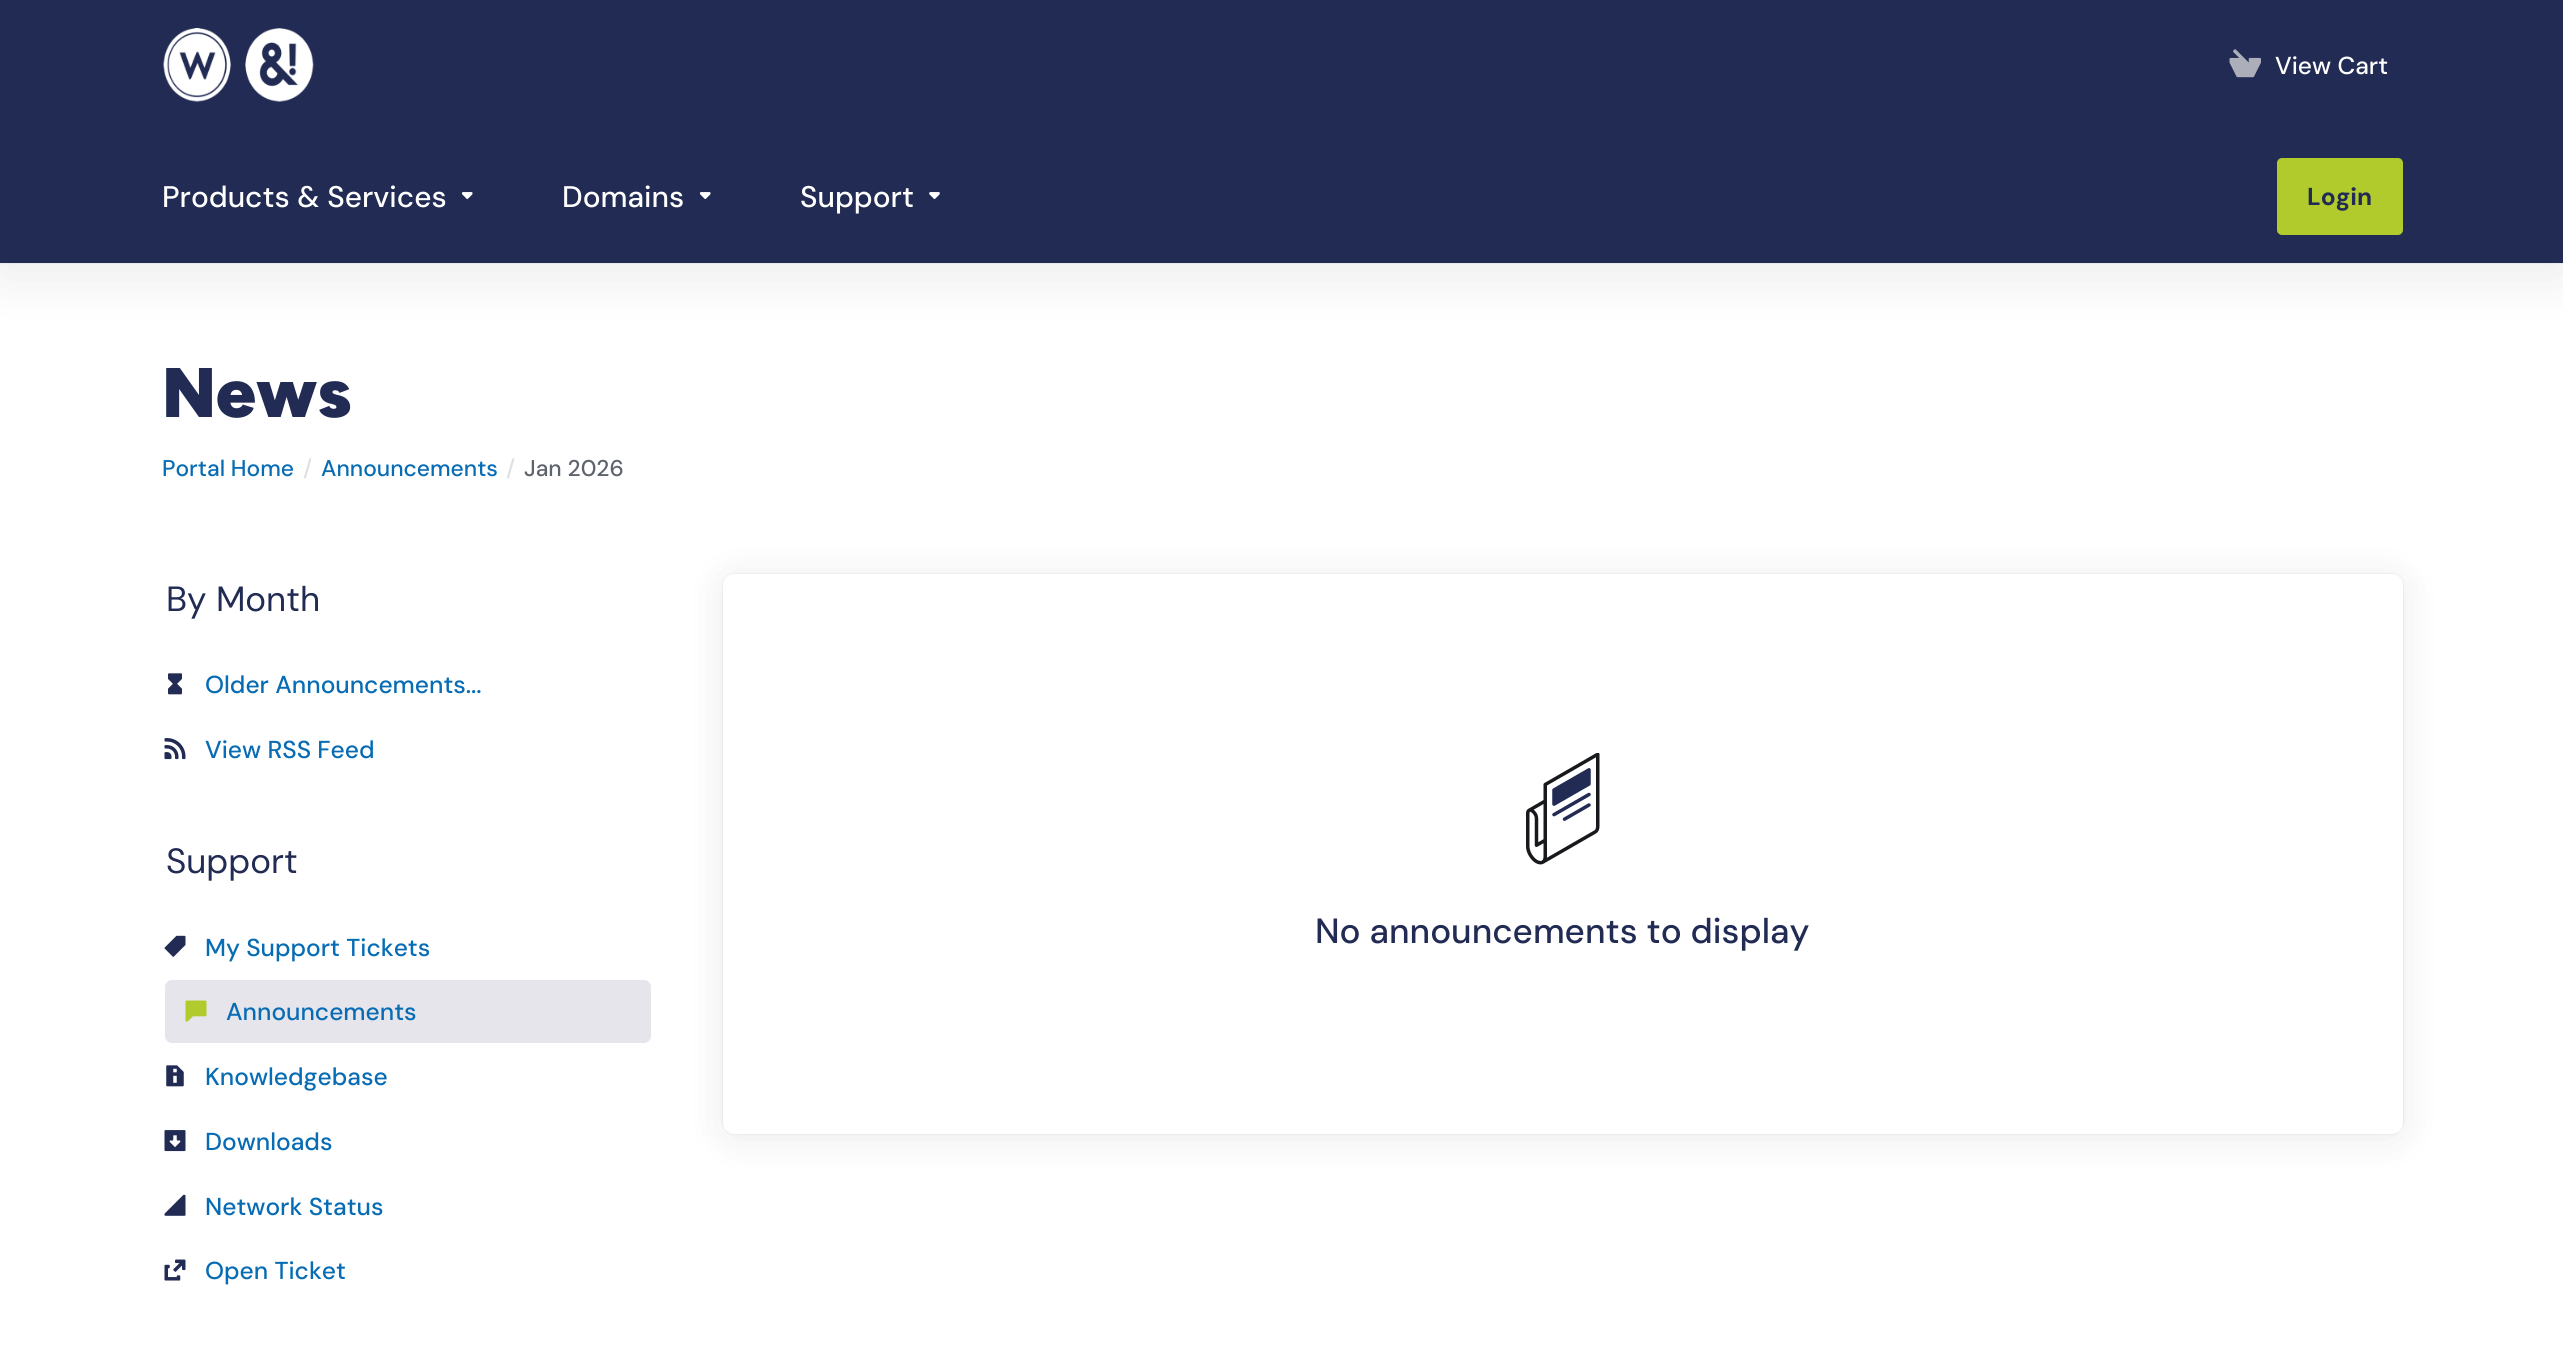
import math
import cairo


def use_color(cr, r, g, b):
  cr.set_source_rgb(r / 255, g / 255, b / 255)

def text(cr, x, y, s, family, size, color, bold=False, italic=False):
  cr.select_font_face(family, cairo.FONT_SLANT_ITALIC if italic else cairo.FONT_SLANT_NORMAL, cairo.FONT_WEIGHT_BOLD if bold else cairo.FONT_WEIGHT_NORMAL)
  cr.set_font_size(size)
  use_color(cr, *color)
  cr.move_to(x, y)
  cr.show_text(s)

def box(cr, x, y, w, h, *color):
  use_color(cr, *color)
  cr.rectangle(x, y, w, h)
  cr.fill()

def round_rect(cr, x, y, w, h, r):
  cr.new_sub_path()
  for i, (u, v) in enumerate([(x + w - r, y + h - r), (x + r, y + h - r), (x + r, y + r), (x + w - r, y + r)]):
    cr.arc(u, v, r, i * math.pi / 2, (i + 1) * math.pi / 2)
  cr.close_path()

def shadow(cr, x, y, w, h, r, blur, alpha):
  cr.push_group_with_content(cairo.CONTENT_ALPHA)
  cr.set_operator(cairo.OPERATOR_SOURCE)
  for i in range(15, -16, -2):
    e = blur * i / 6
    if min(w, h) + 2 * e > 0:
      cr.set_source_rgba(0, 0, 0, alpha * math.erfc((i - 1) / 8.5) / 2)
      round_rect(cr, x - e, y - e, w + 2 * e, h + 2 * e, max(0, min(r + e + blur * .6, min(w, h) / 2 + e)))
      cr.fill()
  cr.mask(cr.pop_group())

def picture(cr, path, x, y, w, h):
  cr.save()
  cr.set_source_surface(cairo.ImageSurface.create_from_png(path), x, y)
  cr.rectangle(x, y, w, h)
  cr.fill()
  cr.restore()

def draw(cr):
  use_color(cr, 255, 255, 255)
  cr.paint()
  use_color(cr, 0, 0, 0)
  shadow(cr, 0, 14, 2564, 263, 0, 28, 0.08)
  shadow(cr, 0, 0, 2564, 263, 0, 1, 0.12)
  box(cr, 0, 0, 2563, 263, 33, 43, 83)
  picture(cr, "img_01.png", 163, 28, 151, 74)
  picture(cr, "img_02.png", 2229, 49, 32, 29)
  picture(cr, "img_03.png", 462, 192, 11, 8)
  picture(cr, "img_03.png", 700, 192, 11, 8)
  picture(cr, "img_04.png", 929, 192, 11, 8)
  use_color(cr, 177, 203, 45)
  round_rect(cr, 2278, 159, 124, 75, 4)
  cr.fill_preserve()
  cr.stroke()
  picture(cr, "img_05.png", 168, 673, 14, 22)
  picture(cr, "img_06.png", 164, 738, 22, 22)
  picture(cr, "img_07.png", 164, 935, 22, 22)
  use_color(cr, 229, 229, 235)
  round_rect(cr, 165, 980, 486, 63, 7)
  cr.fill()
  picture(cr, "img_08.png", 185, 1000, 22, 22)
  picture(cr, "img_09.png", 166, 1065, 18, 22)
  picture(cr, "img_10.png", 164, 1130, 22, 22)
  picture(cr, "img_11.png", 164, 1194, 22, 22)
  picture(cr, "img_12.png", 164, 1259, 22, 22)
  use_color(cr, 0, 0, 0)
  shadow(cr, 723, 578, 1680, 560, 11, 21, 0.08)
  shadow(cr, 723, 574, 1680, 560, 11, 1, 0.1)
  use_color(cr, 255, 255, 255)
  round_rect(cr, 723, 574, 1680, 560, 11)
  cr.fill()
  picture(cr, "img_13.png", 1526, 753, 74, 112)
  text(cr, 2275, 74, "View Cart", "DM Sans Medium", 24.5, (255, 255, 255))
  text(cr, 162, 207, "Products & Services", "DM Sans Medium", 29.75, (255, 255, 255))
  text(cr, 562, 207, "Domains", "DM Sans Medium", 29.75, (255, 255, 255))
  text(cr, 800, 207, "Support", "DM Sans Medium", 29.75, (255, 255, 255))
  text(cr, 2307, 205, "Login", "DM Sans", 24.5, (33, 43, 83), bold=True)
  text(cr, 162, 417, "News", "Figtree Black", 70, (33, 43, 83))
  text(cr, 162, 476, "Portal Home", "DM Sans Medium", 22.75, (7, 108, 180))
  text(cr, 303, 476, "/", "DM Sans Medium", 22.75, (222, 224, 227))
  text(cr, 321, 476, "Announcements", "DM Sans Medium", 22.75, (7, 108, 180))
  text(cr, 506, 476, "/", "DM Sans Medium", 22.75, (222, 224, 227))
  text(cr, 524, 476, "Jan 2026", "DM Sans Medium", 22.75, (94, 99, 110))
  text(cr, 166, 611, "By Month", "DM Sans", 35, (33, 43, 83))
  text(cr, 205, 693, "Older Announcements...", "DM Sans Medium", 24.5, (7, 108, 180))
  text(cr, 205, 758, "View RSS Feed", "DM Sans Medium", 24.5, (7, 108, 180))
  text(cr, 166, 873, "Support", "DM Sans", 35, (33, 43, 83))
  text(cr, 205, 956, "My Support Tickets", "DM Sans Medium", 24.5, (7, 108, 180))
  text(cr, 226, 1020, "Announcements", "DM Sans Medium", 24.5, (7, 108, 180))
  text(cr, 205, 1085, "Knowledgebase", "DM Sans Medium", 24.5, (7, 108, 180))
  text(cr, 205, 1150, "Downloads", "DM Sans Medium", 24.5, (7, 108, 180))
  text(cr, 205, 1215, "Network Status", "DM Sans Medium", 24.5, (7, 108, 180))
  text(cr, 205, 1279, "Open Ticket", "DM Sans Medium", 24.5, (7, 108, 180))
  text(cr, 1315, 943, "No announcements to display", "DM Sans Medium", 35, (33, 43, 83))


surface = cairo.ImageSurface(cairo.FORMAT_RGB24, 2563, 1350)
cr = cairo.Context(surface)
options = cairo.FontOptions()
options.set_hint_metrics(cairo.HINT_METRICS_OFF)
options.set_hint_style(cairo.HINT_STYLE_NONE)
cr.set_font_options(options)
cr.set_miter_limit(4)
draw(cr)
surface.write_to_png("out.png")
